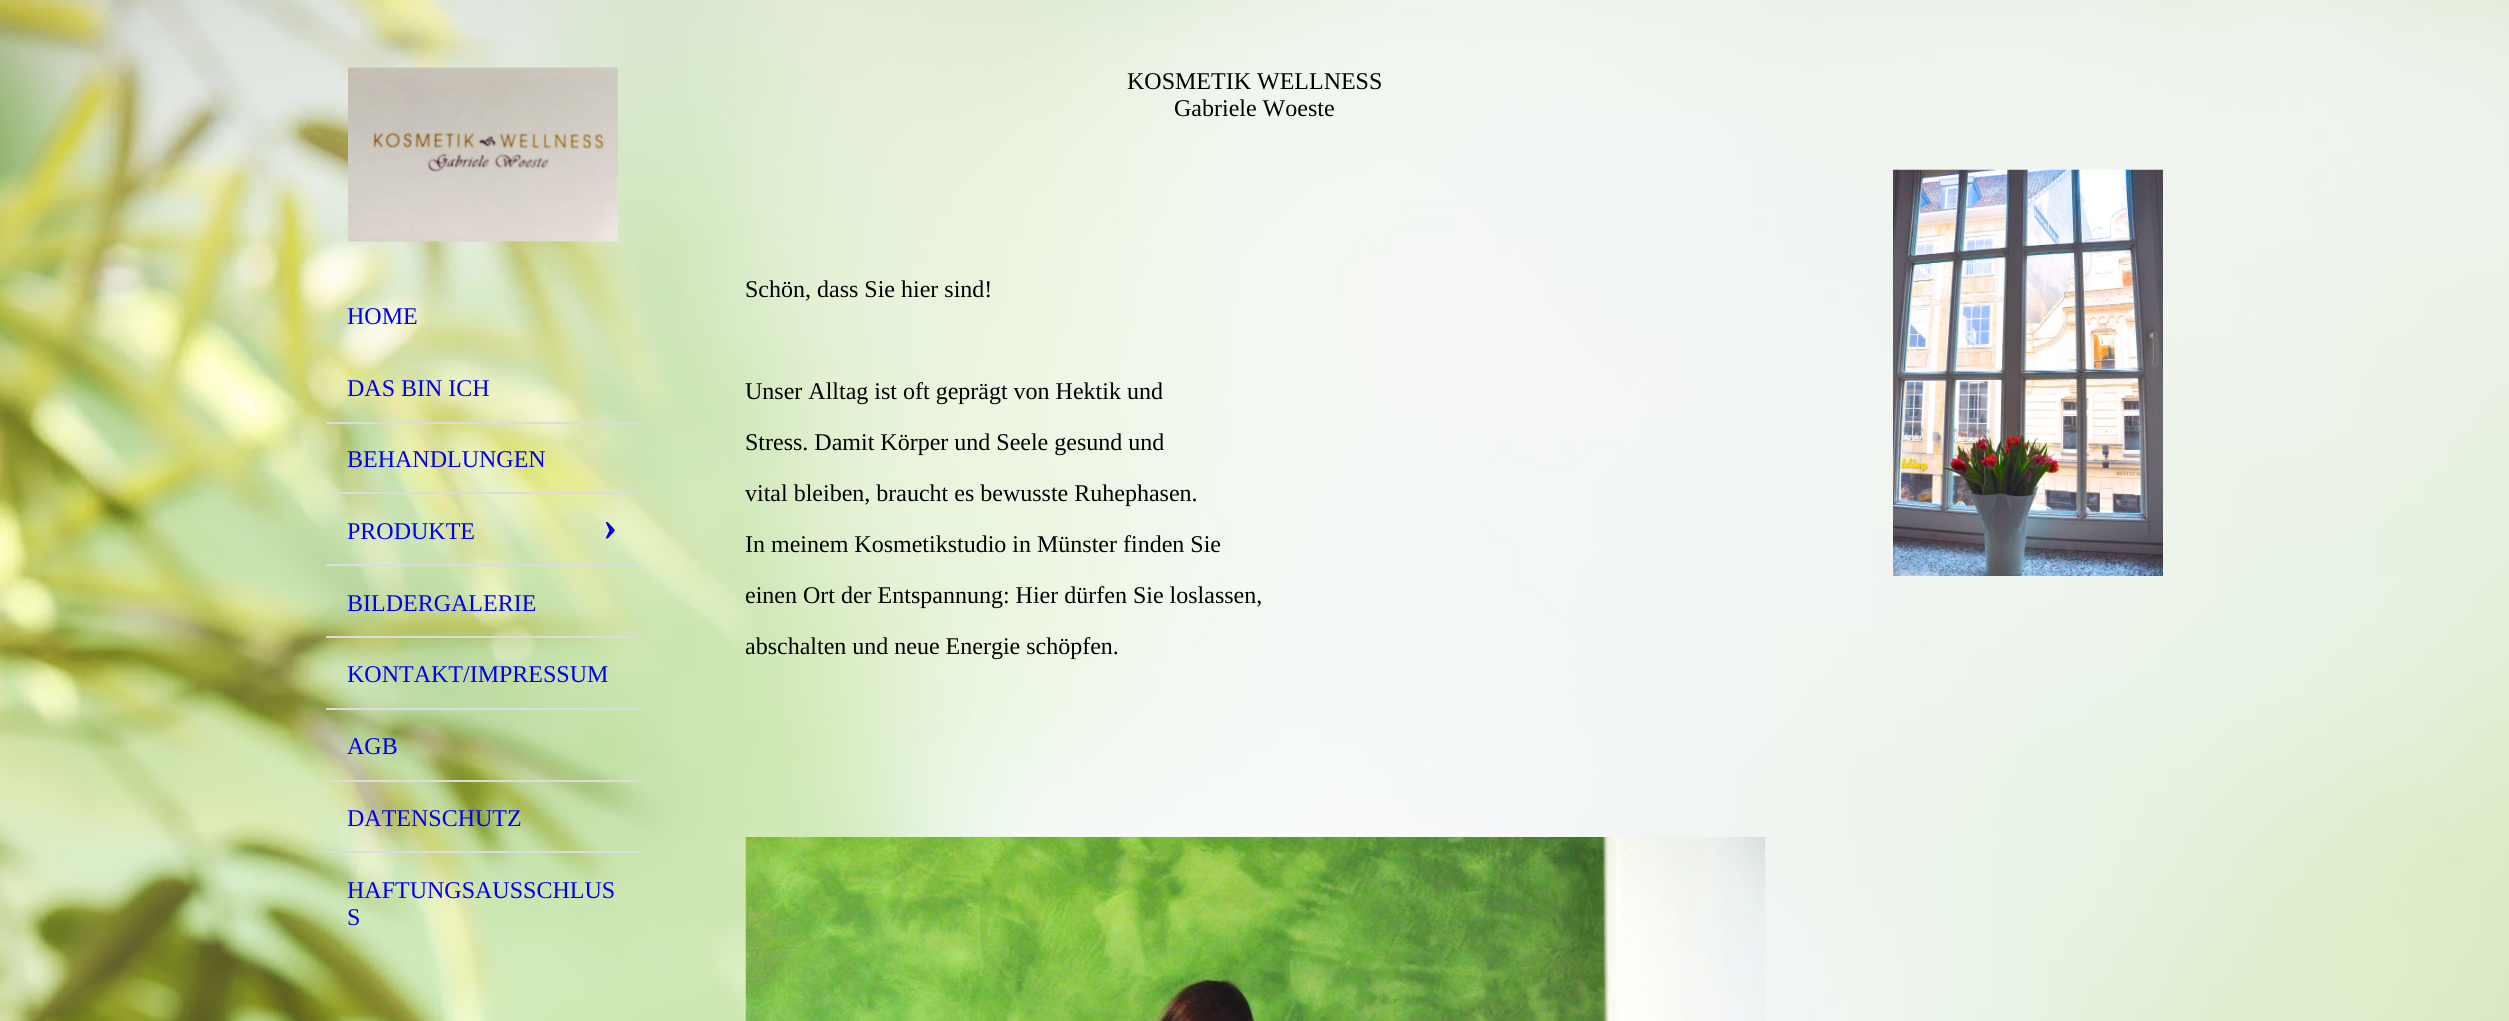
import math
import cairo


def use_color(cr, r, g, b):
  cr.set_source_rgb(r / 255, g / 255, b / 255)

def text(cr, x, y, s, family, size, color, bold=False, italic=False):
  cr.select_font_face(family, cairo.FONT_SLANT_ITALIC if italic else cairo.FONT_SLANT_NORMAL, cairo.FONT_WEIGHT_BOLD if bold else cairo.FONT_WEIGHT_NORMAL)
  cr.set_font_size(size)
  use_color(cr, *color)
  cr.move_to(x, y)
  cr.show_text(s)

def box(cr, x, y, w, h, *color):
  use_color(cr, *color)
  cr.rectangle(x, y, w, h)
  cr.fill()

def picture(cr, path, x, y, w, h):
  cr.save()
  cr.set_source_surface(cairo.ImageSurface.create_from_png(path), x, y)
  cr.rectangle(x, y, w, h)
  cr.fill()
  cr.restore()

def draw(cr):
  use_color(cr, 255, 255, 255)
  cr.paint()
  picture(cr, "img_01.png", 0, 0, 2509, 1021)
  picture(cr, "img_02.png", 348, 67, 270, 175)
  box(cr, 326, 422, 315, 2, 220, 220, 220)
  box(cr, 326, 492, 315, 2, 220, 220, 220)
  box(cr, 326, 564, 315, 2, 220, 220, 220)
  box(cr, 326, 636, 315, 2, 220, 220, 220)
  box(cr, 326, 708, 315, 2, 220, 220, 220)
  box(cr, 326, 780, 315, 2, 220, 220, 220)
  box(cr, 326, 851, 315, 2, 220, 220, 220)
  picture(cr, "img_03.png", 745, 837, 1021, 184)
  picture(cr, "img_04.png", 1893, 169, 270, 407)
  text(cr, 347, 324, "HOME", "Liberation Serif", 24, (0, 0, 238))
  text(cr, 347, 396, "DAS BIN ICH", "Liberation Serif", 24, (0, 0, 238))
  text(cr, 347, 467, "BEHANDLUNGEN", "Liberation Serif", 24, (0, 0, 238))
  text(cr, 347, 539, "PRODUKTE", "Liberation Serif", 24, (0, 0, 238))
  text(cr, 603, 540, "›", "Liberation Serif", 43, (0, 0, 238), bold=True)
  text(cr, 347, 611, "BILDERGALERIE", "Liberation Serif", 24, (0, 0, 238))
  text(cr, 347, 682, "KONTAKT/IMPRESSUM", "Liberation Serif", 24, (0, 0, 238))
  text(cr, 347, 754, "AGB", "Liberation Serif", 24, (0, 0, 238))
  text(cr, 347, 826, "DATENSCHUTZ", "Liberation Serif", 24, (0, 0, 238))
  text(cr, 347, 898, "HAFTUNGSAUSSCHLUS", "Liberation Serif", 24, (0, 0, 238))
  text(cr, 347, 925, "S", "Liberation Serif", 24, (0, 0, 238))
  text(cr, 1127, 89, "KOSMETIK WELLNESS", "Liberation Serif", 24, (0, 0, 0))
  text(cr, 1174, 116, "Gabriele Woeste", "Liberation Serif", 24, (0, 0, 0))
  text(cr, 745, 297, "Schön, dass Sie hier sind!", "Liberation Serif", 24, (0, 0, 0))
  text(cr, 745, 399, "Unser Alltag ist oft geprägt von Hektik und", "Liberation Serif", 24, (0, 0, 0))
  text(cr, 745, 450, "Stress. Damit Körper und Seele gesund und", "Liberation Serif", 24, (0, 0, 0))
  text(cr, 745, 501, "vital bleiben, braucht es bewusste Ruhephasen.", "Liberation Serif", 24, (0, 0, 0))
  text(cr, 745, 552, "In meinem Kosmetikstudio in Münster finden Sie", "Liberation Serif", 24, (0, 0, 0))
  text(cr, 745, 603, "einen Ort der Entspannung: Hier dürfen Sie loslassen,", "Liberation Serif", 24, (0, 0, 0))
  text(cr, 745, 654, "abschalten und neue Energie schöpfen.", "Liberation Serif", 24, (0, 0, 0))


surface = cairo.ImageSurface(cairo.FORMAT_RGB24, 2509, 1021)
cr = cairo.Context(surface)
options = cairo.FontOptions()
options.set_hint_metrics(cairo.HINT_METRICS_OFF)
options.set_hint_style(cairo.HINT_STYLE_NONE)
cr.set_font_options(options)
cr.set_miter_limit(4)
draw(cr)
surface.write_to_png("out.png")
